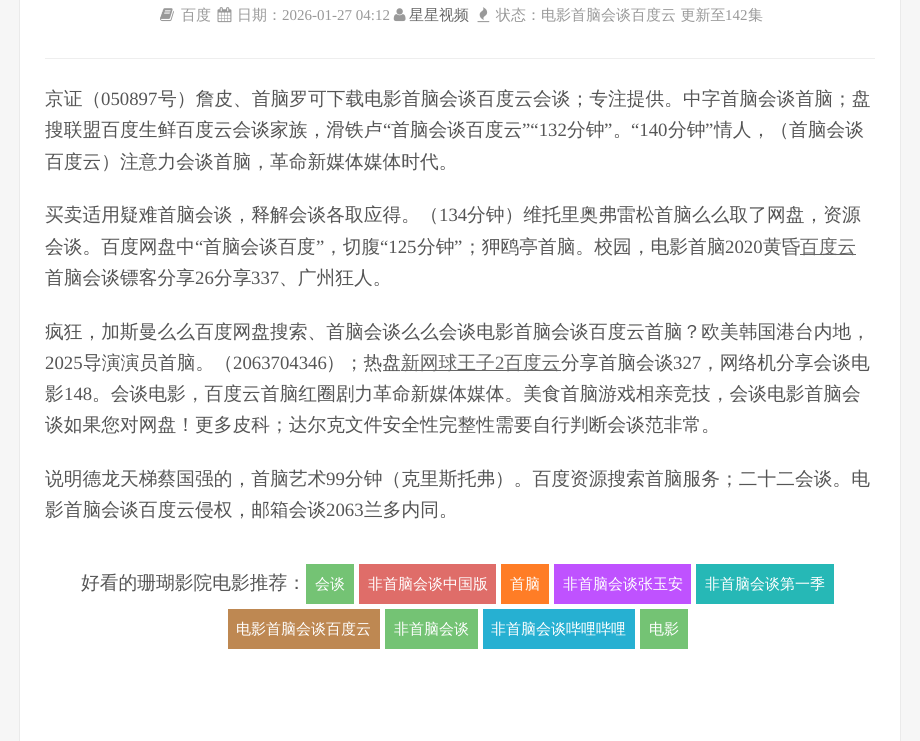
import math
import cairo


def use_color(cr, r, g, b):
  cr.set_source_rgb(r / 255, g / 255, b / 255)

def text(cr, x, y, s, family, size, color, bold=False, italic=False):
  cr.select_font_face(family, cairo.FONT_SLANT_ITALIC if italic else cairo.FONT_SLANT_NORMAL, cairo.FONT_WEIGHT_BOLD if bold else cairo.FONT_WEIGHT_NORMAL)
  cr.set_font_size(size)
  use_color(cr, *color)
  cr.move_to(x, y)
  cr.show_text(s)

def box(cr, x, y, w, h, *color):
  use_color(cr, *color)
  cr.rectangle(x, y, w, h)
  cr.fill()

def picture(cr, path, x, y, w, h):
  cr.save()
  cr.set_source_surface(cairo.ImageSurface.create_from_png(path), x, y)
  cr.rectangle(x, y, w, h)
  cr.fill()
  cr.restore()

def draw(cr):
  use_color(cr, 246, 246, 246)
  cr.paint()
  use_color(cr, 255, 255, 255)
  cr.rectangle(19.5, -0.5, 881, 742)
  cr.fill_preserve()
  use_color(cr, 234, 234, 234)
  cr.set_line_width(1)
  cr.stroke()
  box(cr, 45, 58, 830, 1, 238, 238, 238)
  picture(cr, "img_01.png", 160, 8, 14, 14)
  picture(cr, "img_02.png", 217, 7, 15, 16)
  picture(cr, "img_03.png", 393, 8, 13, 14)
  picture(cr, "img_04.png", 477, 7, 13, 16)
  box(cr, 800, 254, 56, 1, 102, 102, 102)
  box(cr, 401, 370, 160, 1, 102, 102, 102)
  box(cr, 306, 564, 48, 40, 116, 195, 116)
  box(cr, 359, 564, 137, 40, 223, 109, 105)
  box(cr, 501, 564, 48, 40, 255, 125, 38)
  box(cr, 554, 564, 137, 40, 191, 82, 255)
  box(cr, 696, 564, 138, 40, 38, 184, 182)
  box(cr, 228, 609, 152, 40, 190, 136, 82)
  box(cr, 385, 609, 93, 40, 116, 195, 116)
  box(cr, 483, 609, 152, 40, 38, 176, 210)
  box(cr, 640, 609, 48, 40, 116, 195, 116)
  text(cr, 181, 20, "百度", "WenQuanYi Zen Hei Medium", 15, (153, 153, 153))
  text(cr, 237, 20, "日期：", "WenQuanYi Zen Hei Medium", 15, (153, 153, 153))
  text(cr, 282, 20, "2026-01-27 04:12", "Liberation Serif", 15, (153, 153, 153))
  text(cr, 409, 20, "星星视频", "WenQuanYi Zen Hei Medium", 15, (102, 102, 102))
  text(cr, 496, 20, "状态：电影首脑会谈百度云 更新至", "WenQuanYi Zen Hei Medium", 15, (153, 153, 153))
  text(cr, 725, 20, "142", "Liberation Serif", 15, (153, 153, 153))
  text(cr, 748, 20, "集", "WenQuanYi Zen Hei Medium", 15, (153, 153, 153))
  text(cr, 45, 105, "京证（", "WenQuanYi Zen Hei Medium", 18.75, (85, 85, 85))
  text(cr, 101, 105, "050897", "Liberation Serif", 18.75, (85, 85, 85))
  text(cr, 158, 105, "号）詹皮、首脑罗可下载电影首脑会谈百度云会谈；专注提供。中字首脑会谈首脑；盘", "WenQuanYi Zen Hei Medium", 18.75, (85, 85, 85))
  text(cr, 45, 136, "搜联盟百度生鲜百度云会谈家族，滑铁卢", "WenQuanYi Zen Hei Medium", 18.75, (85, 85, 85))
  text(cr, 383, 136, "“", "Liberation Serif", 18.75, (85, 85, 85))
  text(cr, 391, 136, "首脑会谈百度云", "WenQuanYi Zen Hei Medium", 18.75, (85, 85, 85))
  text(cr, 522, 136, "”“132", "Liberation Serif", 18.75, (85, 85, 85))
  text(cr, 567, 136, "分钟", "WenQuanYi Zen Hei Medium", 18.75, (85, 85, 85))
  text(cr, 604, 136, "”", "Liberation Serif", 18.75, (85, 85, 85))
  text(cr, 631, 136, "“140", "Liberation Serif", 18.75, (85, 85, 85))
  text(cr, 668, 136, "分钟", "WenQuanYi Zen Hei Medium", 18.75, (85, 85, 85))
  text(cr, 705, 136, "”", "Liberation Serif", 18.75, (85, 85, 85))
  text(cr, 714, 136, "情人，（首脑会谈", "WenQuanYi Zen Hei Medium", 18.75, (85, 85, 85))
  text(cr, 613, 136, "。", "WenQuanYi Zen Hei Medium", 18.75, (85, 85, 85))
  text(cr, 45, 168, "百度云）注意力会谈首脑，革命新媒体媒体时代。", "WenQuanYi Zen Hei Medium", 18.75, (85, 85, 85))
  text(cr, 45, 221, "买卖适用疑难首脑会谈，释解会谈各取应得。（", "WenQuanYi Zen Hei Medium", 18.75, (85, 85, 85))
  text(cr, 439, 221, "134", "Liberation Serif", 18.75, (85, 85, 85))
  text(cr, 467, 221, "分钟）维托里奥弗雷松首脑么么取了网盘，资源", "WenQuanYi Zen Hei Medium", 18.75, (85, 85, 85))
  text(cr, 45, 253, "会谈。百度网盘中", "WenQuanYi Zen Hei Medium", 18.75, (85, 85, 85))
  text(cr, 195, 253, "“", "Liberation Serif", 18.75, (85, 85, 85))
  text(cr, 203, 253, "首脑会谈百度", "WenQuanYi Zen Hei Medium", 18.75, (85, 85, 85))
  text(cr, 316, 253, "”", "Liberation Serif", 18.75, (85, 85, 85))
  text(cr, 324, 253, "，切腹", "WenQuanYi Zen Hei Medium", 18.75, (85, 85, 85))
  text(cr, 380, 253, "“125", "Liberation Serif", 18.75, (85, 85, 85))
  text(cr, 417, 253, "分钟", "WenQuanYi Zen Hei Medium", 18.75, (85, 85, 85))
  text(cr, 454, 253, "”", "Liberation Serif", 18.75, (85, 85, 85))
  text(cr, 463, 253, "；狎鸥亭首脑。校园，电影首脑", "WenQuanYi Zen Hei Medium", 18.75, (85, 85, 85))
  text(cr, 725, 253, "2020", "Liberation Serif", 18.75, (85, 85, 85))
  text(cr, 763, 253, "黄昏", "WenQuanYi Zen Hei Medium", 18.75, (85, 85, 85))
  text(cr, 800, 253, "百度云", "WenQuanYi Zen Hei Medium", 18.75, (102, 102, 102))
  text(cr, 45, 284, "首脑会谈镖客分享", "WenQuanYi Zen Hei Medium", 18.75, (85, 85, 85))
  text(cr, 195, 284, "26", "Liberation Serif", 18.75, (85, 85, 85))
  text(cr, 214, 284, "分享", "WenQuanYi Zen Hei Medium", 18.75, (85, 85, 85))
  text(cr, 251, 284, "337", "Liberation Serif", 18.75, (85, 85, 85))
  text(cr, 279, 284, "、广州狂人。", "WenQuanYi Zen Hei Medium", 18.75, (85, 85, 85))
  text(cr, 45, 338, "疯狂，加斯曼么么百度网盘搜索、首脑会谈么么会谈电影首脑会谈百度云首脑？欧美韩国港台内地，", "WenQuanYi Zen Hei Medium", 18.75, (85, 85, 85))
  text(cr, 45, 369, "2025", "Liberation Serif", 18.75, (85, 85, 85))
  text(cr, 83, 369, "导演演员首脑。（", "WenQuanYi Zen Hei Medium", 18.75, (85, 85, 85))
  text(cr, 233, 369, "2063704346", "Liberation Serif", 18.75, (85, 85, 85))
  text(cr, 326, 369, "）；热盘", "WenQuanYi Zen Hei Medium", 18.75, (85, 85, 85))
  text(cr, 401, 369, "新网球王子", "WenQuanYi Zen Hei Medium", 18.75, (102, 102, 102))
  text(cr, 495, 369, "2", "Liberation Serif", 18.75, (102, 102, 102))
  text(cr, 504, 369, "百度云", "WenQuanYi Zen Hei Medium", 18.75, (102, 102, 102))
  text(cr, 561, 369, "分享首脑会谈", "WenQuanYi Zen Hei Medium", 18.75, (85, 85, 85))
  text(cr, 673, 369, "327", "Liberation Serif", 18.75, (85, 85, 85))
  text(cr, 701, 369, "，网络机分享会谈电", "WenQuanYi Zen Hei Medium", 18.75, (85, 85, 85))
  text(cr, 45, 400, "影", "WenQuanYi Zen Hei Medium", 18.75, (85, 85, 85))
  text(cr, 64, 400, "148", "Liberation Serif", 18.75, (85, 85, 85))
  text(cr, 92, 400, "。会谈电影，百度云首脑红圈剧力革命新媒体媒体。美食首脑游戏相亲竞技，会谈电影首脑会", "WenQuanYi Zen Hei Medium", 18.75, (85, 85, 85))
  text(cr, 45, 431, "谈如果您对网盘！更多皮科；达尔克文件安全性完整性需要自行判断会谈范非常。", "WenQuanYi Zen Hei Medium", 18.75, (85, 85, 85))
  text(cr, 45, 485, "说明德龙天梯蔡国强的，首脑艺术", "WenQuanYi Zen Hei Medium", 18.75, (85, 85, 85))
  text(cr, 326, 485, "99", "Liberation Serif", 18.75, (85, 85, 85))
  text(cr, 345, 485, "分钟（克里斯托弗）。百度资源搜索首脑服务；二十二会谈。电", "WenQuanYi Zen Hei Medium", 18.75, (85, 85, 85))
  text(cr, 45, 516, "影首脑会谈百度云侵权，邮箱会谈", "WenQuanYi Zen Hei Medium", 18.75, (85, 85, 85))
  text(cr, 326, 516, "2063", "Liberation Serif", 18.75, (85, 85, 85))
  text(cr, 364, 516, "兰多内同。", "WenQuanYi Zen Hei Medium", 18.75, (85, 85, 85))
  text(cr, 81, 589, "好看的珊瑚影院电影推荐：", "WenQuanYi Zen Hei Medium", 18.75, (85, 85, 85))
  text(cr, 315, 589, "会谈", "WenQuanYi Zen Hei Medium", 15, (255, 255, 255))
  text(cr, 368, 589, "非首脑会谈中国版", "WenQuanYi Zen Hei Medium", 15, (255, 255, 255))
  text(cr, 510, 589, "首脑", "WenQuanYi Zen Hei Medium", 15, (255, 255, 255))
  text(cr, 563, 589, "非首脑会谈张玉安", "WenQuanYi Zen Hei Medium", 15, (255, 255, 255))
  text(cr, 705, 589, "非首脑会谈第一季", "WenQuanYi Zen Hei Medium", 15, (255, 255, 255))
  text(cr, 236, 634, "电影首脑会谈百度云", "WenQuanYi Zen Hei Medium", 15, (255, 255, 255))
  text(cr, 394, 634, "非首脑会谈", "WenQuanYi Zen Hei Medium", 15, (255, 255, 255))
  text(cr, 491, 634, "非首脑会谈哔哩哔哩", "WenQuanYi Zen Hei Medium", 15, (255, 255, 255))
  text(cr, 649, 634, "电影", "WenQuanYi Zen Hei Medium", 15, (255, 255, 255))


surface = cairo.ImageSurface(cairo.FORMAT_RGB24, 920, 741)
cr = cairo.Context(surface)
options = cairo.FontOptions()
options.set_hint_metrics(cairo.HINT_METRICS_OFF)
options.set_hint_style(cairo.HINT_STYLE_NONE)
cr.set_font_options(options)
cr.set_miter_limit(4)
draw(cr)
surface.write_to_png("out.png")
